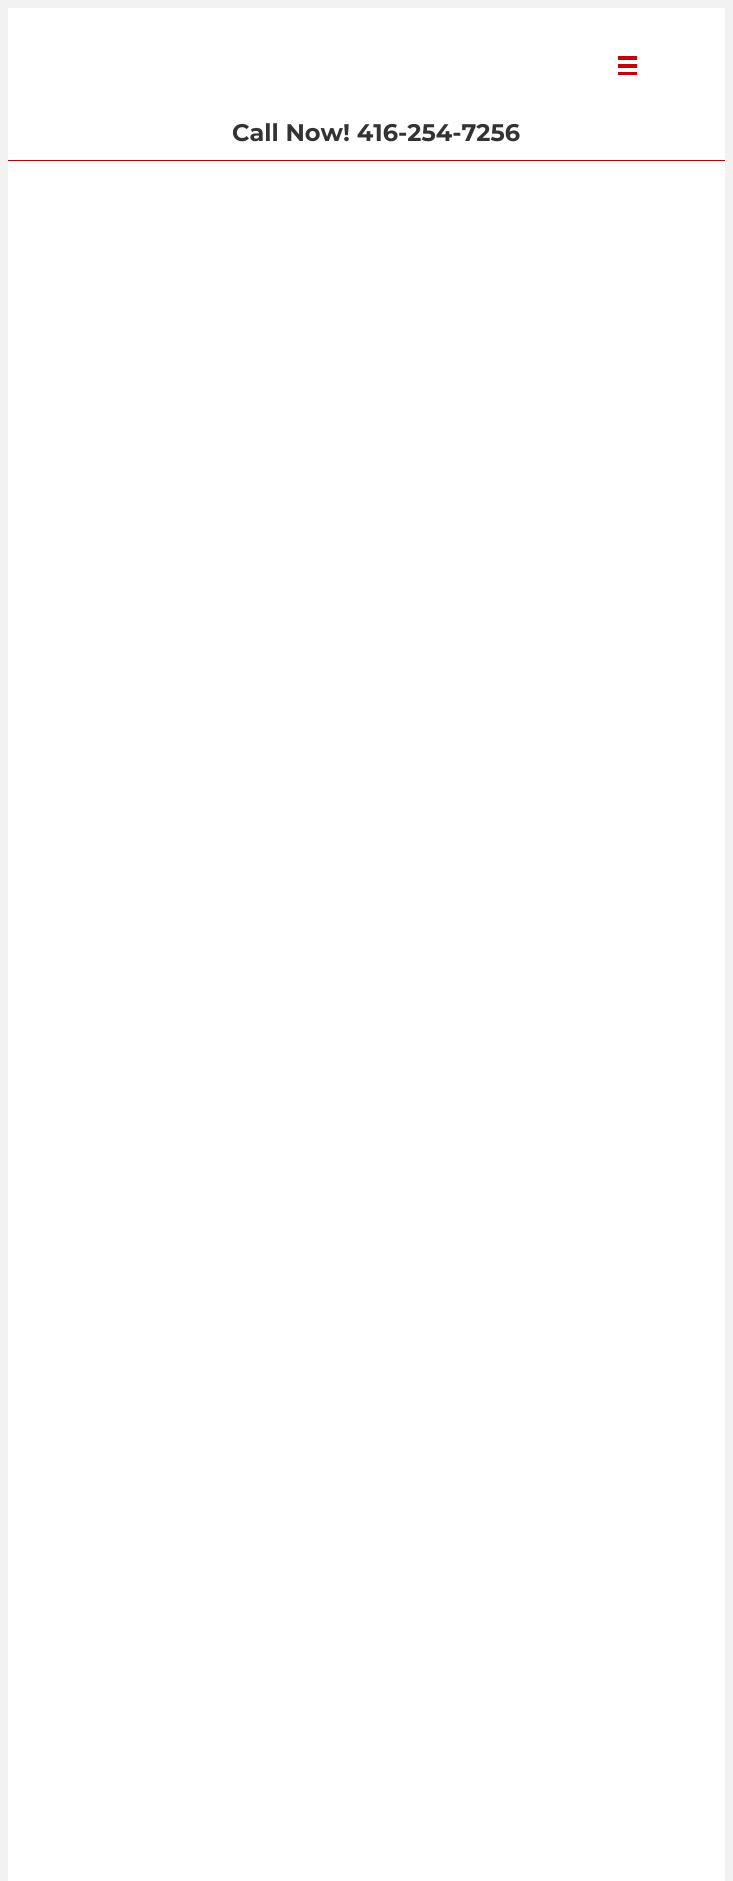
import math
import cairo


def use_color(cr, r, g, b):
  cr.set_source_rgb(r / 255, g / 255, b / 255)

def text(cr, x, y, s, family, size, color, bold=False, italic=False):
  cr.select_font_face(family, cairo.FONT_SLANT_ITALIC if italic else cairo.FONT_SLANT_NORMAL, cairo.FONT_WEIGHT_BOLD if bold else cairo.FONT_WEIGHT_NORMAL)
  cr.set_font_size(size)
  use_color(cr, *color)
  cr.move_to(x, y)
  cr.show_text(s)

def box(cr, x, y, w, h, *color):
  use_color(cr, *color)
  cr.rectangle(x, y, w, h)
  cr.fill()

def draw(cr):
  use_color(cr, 242, 242, 242)
  cr.paint()
  box(cr, 8, 8, 717, 152, 255, 255, 255)
  box(cr, 8, 160, 717, 1, 178, 5, 5)
  box(cr, 618, 56, 19, 4, 197, 0, 8)
  box(cr, 618, 64, 19, 4, 197, 0, 8)
  box(cr, 618, 72, 19, 3, 197, 0, 8)
  box(cr, 8, 161, 717, 1720, 255, 255, 255)
  text(cr, 232, 141, "Call Now! 416-254-7256", "Montserrat Thin", 24, (51, 51, 51))


surface = cairo.ImageSurface(cairo.FORMAT_RGB24, 733, 1881)
cr = cairo.Context(surface)
options = cairo.FontOptions()
options.set_hint_metrics(cairo.HINT_METRICS_OFF)
options.set_hint_style(cairo.HINT_STYLE_NONE)
cr.set_font_options(options)
cr.set_miter_limit(4)
draw(cr)
surface.write_to_png("out.png")
